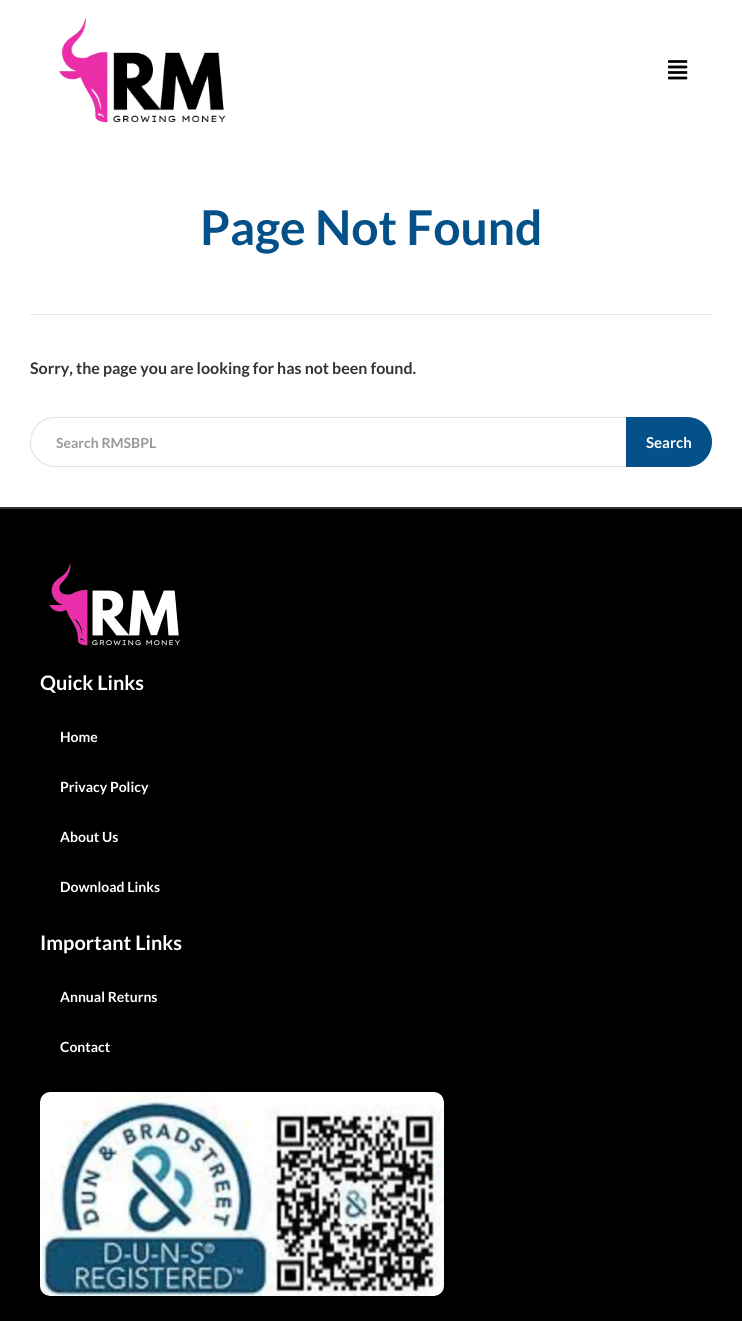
import math
import cairo


def use_color(cr, r, g, b):
  cr.set_source_rgb(r / 255, g / 255, b / 255)

def text(cr, x, y, s, family, size, color, bold=False, italic=False):
  cr.select_font_face(family, cairo.FONT_SLANT_ITALIC if italic else cairo.FONT_SLANT_NORMAL, cairo.FONT_WEIGHT_BOLD if bold else cairo.FONT_WEIGHT_NORMAL)
  cr.set_font_size(size)
  use_color(cr, *color)
  cr.move_to(x, y)
  cr.show_text(s)

def box(cr, x, y, w, h, *color):
  use_color(cr, *color)
  cr.rectangle(x, y, w, h)
  cr.fill()

def picture(cr, path, x, y, w, h):
  cr.save()
  cr.set_source_surface(cairo.ImageSurface.create_from_png(path), x, y)
  cr.rectangle(x, y, w, h)
  cr.fill()
  cr.restore()

def draw(cr):
  use_color(cr, 255, 255, 255)
  cr.paint()
  picture(cr, "img_01.png", 59, 18, 167, 105)
  picture(cr, "img_02.png", 668, 60, 20, 20)
  box(cr, 30, 314, 682, 1, 230, 230, 230)
  use_color(cr, 226, 226, 226)
  cr.set_fill_rule(cairo.FILL_RULE_EVEN_ODD)
  cr.new_path()
  cr.move_to(55, 417)
  cr.line_to(626, 417)
  cr.line_to(626, 467)
  cr.line_to(55, 467)
  cr.curve_to(41, 467, 30, 456, 30, 442)
  cr.curve_to(30, 428, 41, 417, 55, 417)
  cr.close_path()
  cr.move_to(55, 418)
  cr.line_to(626, 418)
  cr.line_to(626, 466)
  cr.line_to(55, 466)
  cr.curve_to(42, 466, 31, 455, 31, 442)
  cr.curve_to(31, 429, 42, 418, 55, 418)
  cr.close_path()
  cr.fill()
  use_color(cr, 4, 80, 137)
  cr.new_path()
  cr.move_to(626, 417)
  cr.line_to(687, 417)
  cr.curve_to(701, 417, 712, 428, 712, 442)
  cr.curve_to(712, 456, 701, 467, 687, 467)
  cr.line_to(626, 467)
  cr.close_path()
  cr.fill()
  box(cr, 0, 509, 742, 812, 0, 0, 0)
  box(cr, 0, 507, 742, 2, 51, 51, 51)
  picture(cr, "img_03.png", 49, 563, 131, 83)
  picture(cr, "img_04.png", 40, 1092, 404, 204)
  text(cr, 200, 245, "Page Not Found", "Lato", 48, (4, 80, 137), bold=True)
  text(cr, 30, 374, "Sorry, the page you are looking for has not been found.", "Lato", 16, (51, 51, 51), bold=True)
  text(cr, 56, 448, "Search RMSBPL", "Lato", 14, (153, 153, 153), bold=True)
  text(cr, 646, 448, "Search", "Lato", 15, (255, 255, 255), bold=True)
  text(cr, 40, 690, "Quick Links", "Lato", 20, (255, 255, 255), bold=True)
  text(cr, 60, 742, "Home", "Lato", 14, (255, 255, 255), bold=True)
  text(cr, 60, 792, "Privacy Policy", "Lato", 14, (255, 255, 255), bold=True)
  text(cr, 60, 842, "About Us", "Lato", 14, (255, 255, 255), bold=True)
  text(cr, 60, 892, "Download Links", "Lato", 14, (255, 255, 255), bold=True)
  text(cr, 40, 950, "Important Links", "Lato", 20, (255, 255, 255), bold=True)
  text(cr, 60, 1002, "Annual Returns", "Lato", 14, (255, 255, 255), bold=True)
  text(cr, 60, 1052, "Contact", "Lato", 14, (255, 255, 255), bold=True)


surface = cairo.ImageSurface(cairo.FORMAT_RGB24, 742, 1321)
cr = cairo.Context(surface)
options = cairo.FontOptions()
options.set_hint_metrics(cairo.HINT_METRICS_OFF)
options.set_hint_style(cairo.HINT_STYLE_NONE)
cr.set_font_options(options)
cr.set_miter_limit(4)
draw(cr)
surface.write_to_png("out.png")
